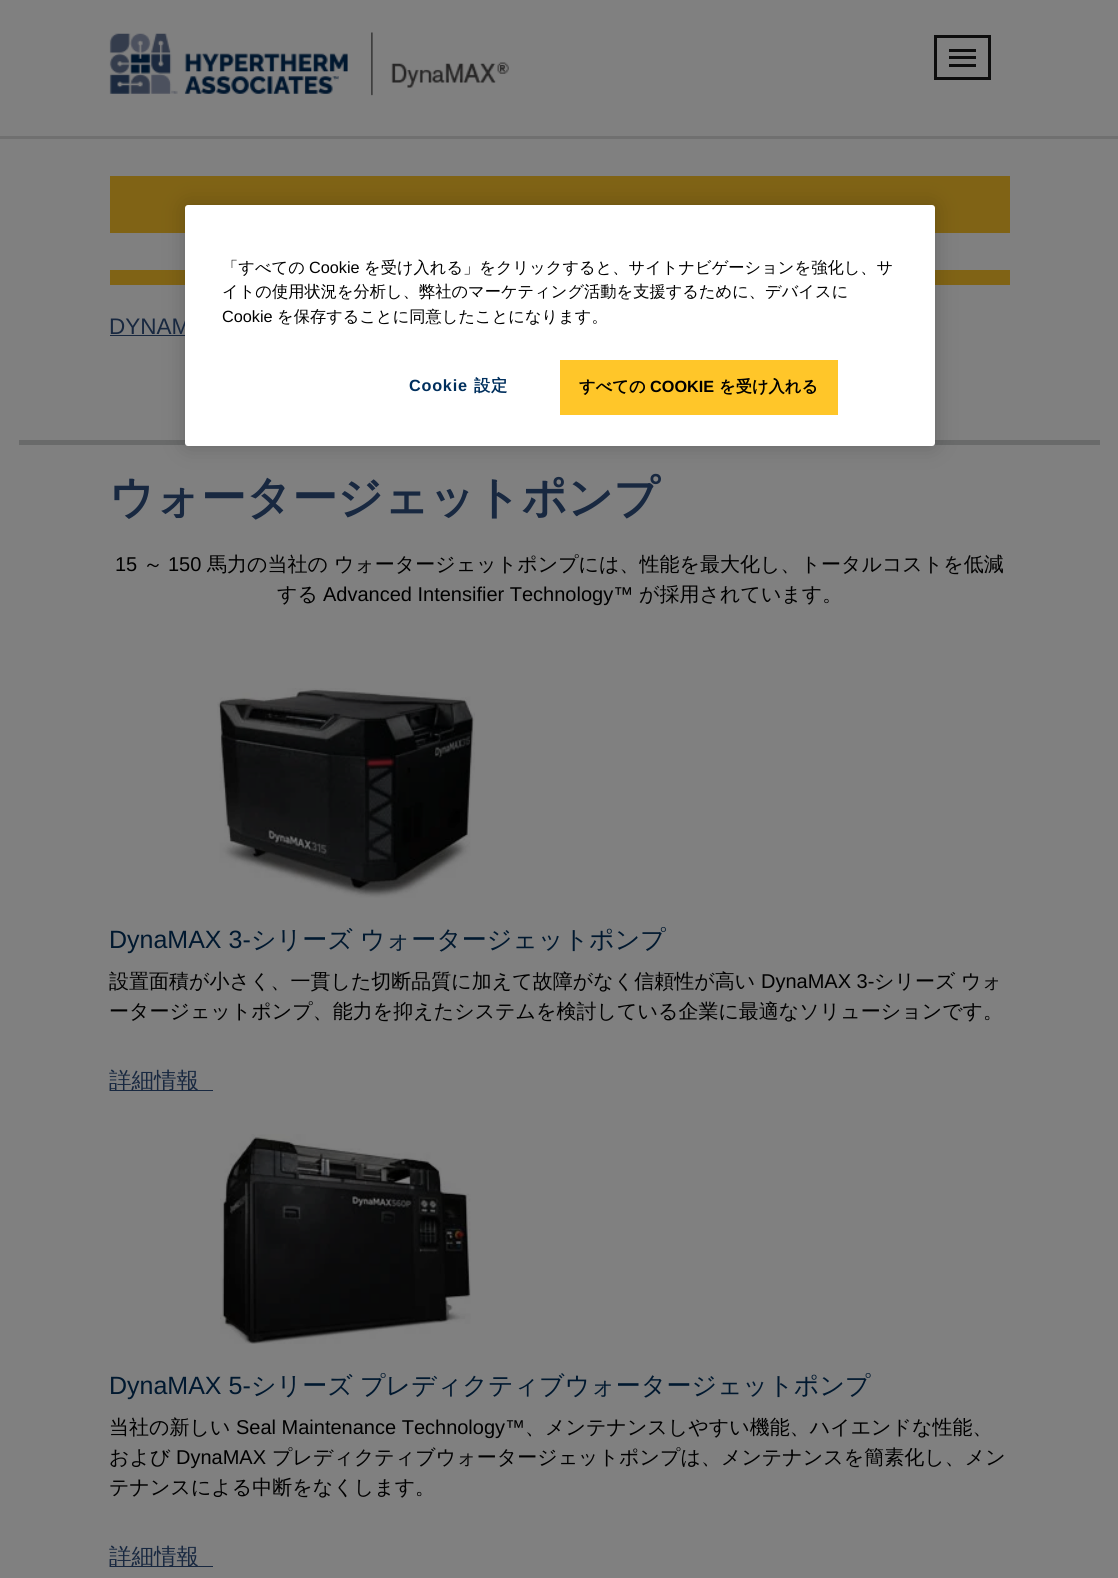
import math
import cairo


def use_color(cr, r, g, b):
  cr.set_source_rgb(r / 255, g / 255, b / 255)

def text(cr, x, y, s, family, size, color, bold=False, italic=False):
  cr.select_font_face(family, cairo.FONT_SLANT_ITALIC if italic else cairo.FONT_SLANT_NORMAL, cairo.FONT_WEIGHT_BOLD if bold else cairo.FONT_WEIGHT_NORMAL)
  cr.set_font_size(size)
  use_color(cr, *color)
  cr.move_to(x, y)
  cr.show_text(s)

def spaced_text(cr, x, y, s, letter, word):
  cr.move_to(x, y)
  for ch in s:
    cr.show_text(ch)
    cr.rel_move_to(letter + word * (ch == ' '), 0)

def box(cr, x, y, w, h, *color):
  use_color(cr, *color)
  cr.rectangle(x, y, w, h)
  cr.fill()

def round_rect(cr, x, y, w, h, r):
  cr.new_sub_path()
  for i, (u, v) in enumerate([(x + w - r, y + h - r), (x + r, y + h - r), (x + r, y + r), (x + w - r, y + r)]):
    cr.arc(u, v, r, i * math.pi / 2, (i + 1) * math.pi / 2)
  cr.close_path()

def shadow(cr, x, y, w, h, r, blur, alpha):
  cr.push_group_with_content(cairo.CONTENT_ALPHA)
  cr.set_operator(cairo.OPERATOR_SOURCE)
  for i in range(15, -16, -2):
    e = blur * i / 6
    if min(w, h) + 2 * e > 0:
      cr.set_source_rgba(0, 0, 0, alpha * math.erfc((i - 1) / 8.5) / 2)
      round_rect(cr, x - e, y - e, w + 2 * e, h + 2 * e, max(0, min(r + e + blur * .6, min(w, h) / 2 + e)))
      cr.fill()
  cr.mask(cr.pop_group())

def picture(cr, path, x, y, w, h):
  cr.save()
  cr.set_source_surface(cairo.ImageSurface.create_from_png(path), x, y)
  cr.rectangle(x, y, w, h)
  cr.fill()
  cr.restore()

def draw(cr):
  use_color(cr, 128, 128, 128)
  cr.paint()
  box(cr, 0, 136, 1118, 3, 112, 112, 112)
  picture(cr, "img_01.png", 109, 32, 400, 64)
  cr.rectangle(935.5, 36.5, 54, 42)
  use_color(cr, 13, 13, 13)
  cr.set_line_width(3)
  cr.stroke()
  box(cr, 949, 49, 27, 3, 13, 13, 13)
  box(cr, 949, 56, 27, 3, 13, 13, 13)
  box(cr, 949, 64, 27, 3, 13, 13, 13)
  box(cr, 110, 176, 900, 57, 128, 99, 21)
  box(cr, 110, 270, 900, 15, 128, 99, 21)
  box(cr, 110, 335, 75, 1, 24, 40, 64)
  box(cr, 19, 440, 1081, 5, 105, 106, 106)
  use_color(cr, 0, 0, 0)
  shadow(cr, 185, 205, 750, 241, 3, 11, 0.2)
  picture(cr, "img_02.png", 217, 688, 258, 210)
  box(cr, 110, 1090, 103, 1, 24, 40, 64)
  picture(cr, "img_03.png", 220, 1134, 251, 210)
  box(cr, 110, 1566, 103, 1, 24, 40, 64)
  text(cr, 109, 334, "DYNAM", "Liberation Sans", 22.5, (24, 40, 64))
  use_color(cr, 255, 255, 255)
  round_rect(cr, 185, 205, 750, 241, 3)
  cr.fill()
  cr.select_font_face("WenQuanYi Zen Hei", cairo.FONT_SLANT_NORMAL, cairo.FONT_WEIGHT_BOLD)
  cr.set_font_size(16.25)
  use_color(cr, 0, 47, 93)
  spaced_text(cr, 474, 391, "設定", 0.75, 0)
  cr.select_font_face("Liberation Sans", cairo.FONT_SLANT_NORMAL, cairo.FONT_WEIGHT_BOLD)
  spaced_text(cr, 409, 391, "Cookie", 0.75, 0)
  box(cr, 560, 360, 278, 55, 255, 198, 41)
  text(cr, 719, 392, "を受け入れる", "WenQuanYi Zen Hei", 16.25, (0, 0, 0), bold=True)
  text(cr, 650, 392, "COOKIE", "Liberation Sans", 16.25, (0, 0, 0), bold=True)
  text(cr, 579, 392, "すべての", "WenQuanYi Zen Hei", 16.25, (0, 0, 0), bold=True)
  text(cr, 277, 322, "を保存することに同意したことになります。", "WenQuanYi Zen Hei Medium", 16.25, (0, 0, 0))
  text(cr, 222, 322, "Cookie", "Liberation Sans", 16.25, (0, 0, 0))
  text(cr, 222, 297, "イトの使用状況を分析し、弊社のマーケティング活動を支援するために、デバイスに", "WenQuanYi Zen Hei Medium", 16.25, (0, 0, 0))
  text(cr, 364, 273, "を受け入れる」をクリックすると、サイトナビゲーションを強化し、サ", "WenQuanYi Zen Hei Medium", 16.25, (0, 0, 0))
  text(cr, 309, 273, "Cookie", "Liberation Sans", 16.25, (0, 0, 0))
  text(cr, 222, 273, "「すべての", "WenQuanYi Zen Hei Medium", 16.25, (0, 0, 0))
  text(cr, 109, 513, "ウォータージェットポンプ", "WenQuanYi Zen Hei", 45, (24, 40, 64), bold=True)
  text(cr, 115, 571, "15", "Liberation Sans", 20, (0, 0, 0))
  text(cr, 143, 571, "～", "WenQuanYi Zen Hei Medium", 20, (0, 0, 0))
  text(cr, 168, 571, "150", "Liberation Sans", 20, (0, 0, 0))
  text(cr, 207, 571, "馬力の当社の ウォータージェットポンプには、性能を最大化し、トータルコストを低減", "WenQuanYi Zen Hei Medium", 20, (0, 0, 0))
  text(cr, 277, 601, "する", "WenQuanYi Zen Hei Medium", 20, (0, 0, 0))
  text(cr, 323, 601, "Advanced Intensifier Technology™", "Liberation Sans", 20, (0, 0, 0))
  text(cr, 639, 601, "が採用されています。", "WenQuanYi Zen Hei Medium", 20, (0, 0, 0))
  text(cr, 109, 948, "DynaMAX 3-", "Liberation Sans", 25, (0, 24, 47))
  text(cr, 251, 948, "シリーズ", "WenQuanYi Zen Hei Medium", 25, (0, 24, 47))
  text(cr, 360, 948, "ウォータージェットポンプ", "WenQuanYi Zen Hei Medium", 25, (0, 24, 47))
  text(cr, 109, 988, "設置面積が小さく、一貫した切断品質に加えて故障がなく信頼性が高い", "WenQuanYi Zen Hei Medium", 20, (0, 0, 0))
  text(cr, 761, 988, "DynaMAX 3-", "Liberation Sans", 20, (0, 0, 0))
  text(cr, 874, 988, "シリーズ", "WenQuanYi Zen Hei Medium", 20, (0, 0, 0))
  text(cr, 961, 988, "ウォ", "WenQuanYi Zen Hei Medium", 20, (0, 0, 0))
  text(cr, 109, 1018, "ータージェットポンプ、能力を抑えたシステムを検討している企業に最適なソリューションです。", "WenQuanYi Zen Hei Medium", 20, (0, 0, 0))
  text(cr, 109, 1088, "詳細情報", "WenQuanYi Zen Hei Medium", 22.5, (24, 40, 64))
  text(cr, 109, 1394, "DynaMAX 5-", "Liberation Sans", 25, (0, 24, 47))
  text(cr, 251, 1394, "シリーズ", "WenQuanYi Zen Hei Medium", 25, (0, 24, 47))
  text(cr, 360, 1394, "プレディクティブウォータージェットポンプ", "WenQuanYi Zen Hei Medium", 25, (0, 24, 47))
  text(cr, 109, 1434, "当社の新しい", "WenQuanYi Zen Hei Medium", 20, (0, 0, 0))
  text(cr, 236, 1434, "Seal Maintenance Technology™", "Liberation Sans", 20, (0, 0, 0))
  text(cr, 525, 1434, "、メンテナンスしやすい機能、ハイエンドな性能、", "WenQuanYi Zen Hei Medium", 20, (0, 0, 0))
  text(cr, 109, 1464, "および", "WenQuanYi Zen Hei Medium", 20, (0, 0, 0))
  text(cr, 176, 1464, "DynaMAX", "Liberation Sans", 20, (0, 0, 0))
  text(cr, 272, 1464, "プレディクティブウォータージェットポンプは、メンテナンスを簡素化し、メン", "WenQuanYi Zen Hei Medium", 20, (0, 0, 0))
  text(cr, 109, 1494, "テナンスによる中断をなくします。", "WenQuanYi Zen Hei Medium", 20, (0, 0, 0))
  text(cr, 109, 1564, "詳細情報", "WenQuanYi Zen Hei Medium", 22.5, (24, 40, 64))


surface = cairo.ImageSurface(cairo.FORMAT_RGB24, 1118, 1578)
cr = cairo.Context(surface)
options = cairo.FontOptions()
options.set_hint_metrics(cairo.HINT_METRICS_OFF)
options.set_hint_style(cairo.HINT_STYLE_NONE)
cr.set_font_options(options)
cr.set_miter_limit(4)
draw(cr)
surface.write_to_png("out.png")
